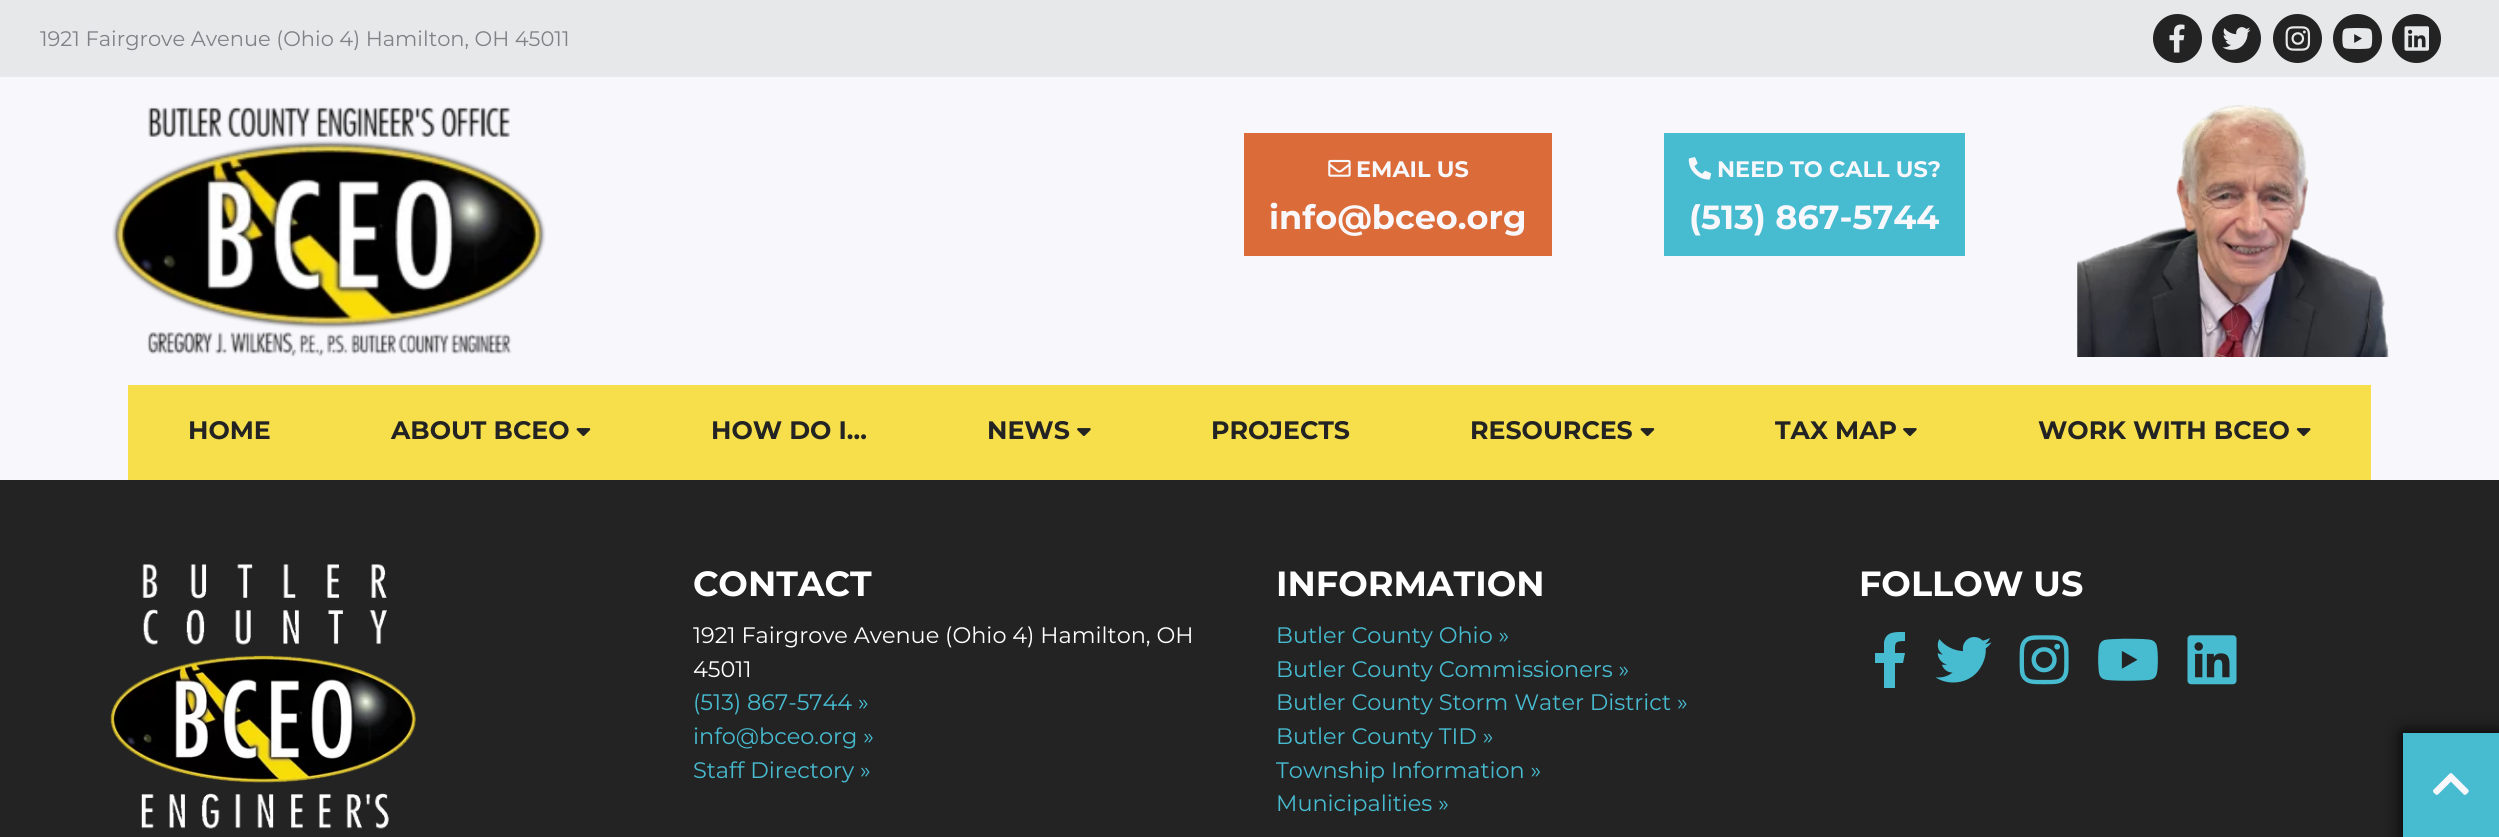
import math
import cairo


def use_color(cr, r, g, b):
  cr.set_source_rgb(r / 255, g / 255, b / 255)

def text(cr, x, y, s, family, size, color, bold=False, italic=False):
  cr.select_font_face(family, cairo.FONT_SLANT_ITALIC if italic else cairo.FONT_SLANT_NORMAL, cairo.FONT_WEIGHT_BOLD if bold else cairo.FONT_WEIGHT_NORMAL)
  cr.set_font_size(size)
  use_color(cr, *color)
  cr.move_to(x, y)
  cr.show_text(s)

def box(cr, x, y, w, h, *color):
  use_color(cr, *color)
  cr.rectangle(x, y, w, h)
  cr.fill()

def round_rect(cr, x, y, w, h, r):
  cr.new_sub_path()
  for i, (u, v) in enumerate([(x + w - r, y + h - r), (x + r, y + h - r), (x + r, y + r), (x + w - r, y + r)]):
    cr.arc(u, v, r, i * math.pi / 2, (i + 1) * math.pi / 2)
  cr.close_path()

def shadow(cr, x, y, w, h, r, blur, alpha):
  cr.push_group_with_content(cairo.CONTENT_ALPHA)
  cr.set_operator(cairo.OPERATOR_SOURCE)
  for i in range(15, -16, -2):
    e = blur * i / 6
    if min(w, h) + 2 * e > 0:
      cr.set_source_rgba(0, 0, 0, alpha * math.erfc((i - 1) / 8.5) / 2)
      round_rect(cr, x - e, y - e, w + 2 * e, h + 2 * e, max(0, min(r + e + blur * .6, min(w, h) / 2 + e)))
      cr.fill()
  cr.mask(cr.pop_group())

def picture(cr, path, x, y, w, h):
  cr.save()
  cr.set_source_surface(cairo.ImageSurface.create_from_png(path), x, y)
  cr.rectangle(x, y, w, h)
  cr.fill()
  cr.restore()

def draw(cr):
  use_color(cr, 248, 248, 252)
  cr.paint()
  box(cr, 0, 0, 2499, 77, 231, 232, 233)
  use_color(cr, 35, 35, 35)
  cr.arc(2177.5, 38.5, 24.5, 0, 2 * math.pi)
  cr.fill()
  picture(cr, "img_01.png", 2169, 24, 16, 29)
  cr.arc(2236.5, 38.5, 24.5, 0, 2 * math.pi)
  cr.fill()
  picture(cr, "img_02.png", 2222, 27, 29, 23)
  cr.arc(2297.5, 38.5, 24.5, 0, 2 * math.pi)
  cr.fill()
  picture(cr, "img_03.png", 2285, 26, 26, 25)
  cr.arc(2357.5, 38.5, 24.5, 0, 2 * math.pi)
  cr.fill()
  picture(cr, "img_04.png", 2342, 28, 31, 21)
  cr.arc(2416.5, 38.5, 24.5, 0, 2 * math.pi)
  cr.fill()
  picture(cr, "img_05.png", 2404, 26, 25, 25)
  picture(cr, "img_06.png", 112, 106, 434, 251)
  box(cr, 1244, 133, 308, 123, 219, 107, 56)
  picture(cr, "img_07.png", 1328, 159, 23, 18)
  box(cr, 1664, 133, 301, 123, 71, 187, 208)
  picture(cr, "img_08.png", 1688, 157, 24, 23)
  picture(cr, "img_09.png", 2077, 105, 312, 252)
  box(cr, 128, 385, 2243, 95, 246, 223, 75)
  picture(cr, "img_10.png", 576, 428, 15, 9)
  picture(cr, "img_11.png", 1077, 428, 14, 9)
  picture(cr, "img_10.png", 1640, 428, 15, 9)
  picture(cr, "img_11.png", 1903, 428, 14, 9)
  picture(cr, "img_12.png", 2296, 428, 15, 9)
  box(cr, 0, 480, 2499, 357, 35, 35, 35)
  picture(cr, "img_13.png", 110, 564, 306, 265)
  use_color(cr, 71, 187, 208)
  cr.new_path()
  cr.move_to(1903, 663)
  cr.line_to(1895, 663)
  cr.line_to(1895, 688)
  cr.line_to(1884, 688)
  cr.line_to(1884, 663)
  cr.line_to(1875, 663)
  cr.line_to(1875, 653)
  cr.line_to(1884, 653)
  cr.line_to(1884, 642)
  cr.curve_to(1886, 631, 1896, 632, 1905, 632)
  cr.line_to(1905, 641)
  cr.curve_to(1894, 641, 1895, 643, 1895, 653)
  cr.line_to(1905, 653)
  cr.close_path()
  cr.fill()
  picture(cr, "img_14.png", 1935, 637, 57, 46)
  picture(cr, "img_15.png", 2019, 635, 50, 50)
  picture(cr, "img_16.png", 2098, 638, 60, 43)
  picture(cr, "img_17.png", 2187, 635, 50, 50)
  use_color(cr, 0, 0, 0)
  shadow(cr, 2403, 733, 96, 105, 0, 9, 1)
  box(cr, 2403, 733, 96, 104, 71, 187, 208)
  picture(cr, "img_18.png", 2433, 773, 36, 22)
  text(cr, 40, 46, "1921 Fairgrove Avenue (Ohio 4) Hamilton, OH 45011", "Montserrat", 21, (128, 130, 133))
  text(cr, 1356, 177, "EMAIL US", "Montserrat", 22.4, (248, 248, 252), bold=True)
  text(cr, 1269, 229, "info@bceo.org", "Montserrat", 33.5, (248, 248, 252), bold=True)
  text(cr, 1717, 177, "NEED TO CALL US?", "Montserrat", 22.4, (248, 248, 252), bold=True)
  text(cr, 1689, 229, "(513) 867-5744", "Montserrat", 33.5, (248, 248, 252), bold=True)
  text(cr, 188, 439, "HOME", "Montserrat", 25.25, (35, 35, 35), bold=True)
  text(cr, 391, 439, "ABOUT BCEO", "Montserrat", 25.25, (35, 35, 35), bold=True)
  text(cr, 711, 439, "HOW DO I…", "Montserrat", 25.25, (35, 35, 35), bold=True)
  text(cr, 987, 439, "NEWS", "Montserrat", 25.25, (35, 35, 35), bold=True)
  text(cr, 1211, 439, "PROJECTS", "Montserrat", 25.25, (35, 35, 35), bold=True)
  text(cr, 1470, 439, "RESOURCES", "Montserrat", 25.25, (35, 35, 35), bold=True)
  text(cr, 1775, 439, "TAX MAP", "Montserrat", 25.25, (35, 35, 35), bold=True)
  text(cr, 2038, 439, "WORK WITH BCEO", "Montserrat", 25.25, (35, 35, 35), bold=True)
  text(cr, 693, 596, "CONTACT", "Montserrat", 35, (255, 255, 255), bold=True)
  text(cr, 693, 643, "1921 Fairgrove Avenue (Ohio 4) Hamilton, OH", "Montserrat", 22.4, (255, 255, 255))
  text(cr, 693, 677, "45011", "Montserrat", 22.4, (255, 255, 255))
  text(cr, 693, 710, "(513) 867-5744 »", "Montserrat", 22.4, (71, 187, 208))
  text(cr, 693, 744, "info@bceo.org »", "Montserrat", 22.4, (71, 187, 208))
  text(cr, 693, 778, "Staff Directory »", "Montserrat", 22.4, (71, 187, 208))
  text(cr, 1276, 596, "INFORMATION", "Montserrat", 35, (255, 255, 255), bold=True)
  text(cr, 1276, 643, "Butler County Ohio »", "Montserrat", 22.4, (71, 187, 208))
  text(cr, 1276, 677, "Butler County Commissioners »", "Montserrat", 22.4, (71, 187, 208))
  text(cr, 1276, 710, "Butler County Storm Water District »", "Montserrat", 22.4, (71, 187, 208))
  text(cr, 1276, 744, "Butler County TID »", "Montserrat", 22.4, (71, 187, 208))
  text(cr, 1276, 778, "Township Information »", "Montserrat", 22.4, (71, 187, 208))
  text(cr, 1276, 811, "Municipalities »", "Montserrat", 22.4, (71, 187, 208))
  text(cr, 1859, 596, "FOLLOW US", "Montserrat", 35, (255, 255, 255), bold=True)


surface = cairo.ImageSurface(cairo.FORMAT_RGB24, 2499, 837)
cr = cairo.Context(surface)
options = cairo.FontOptions()
options.set_hint_metrics(cairo.HINT_METRICS_OFF)
options.set_hint_style(cairo.HINT_STYLE_NONE)
cr.set_font_options(options)
cr.set_miter_limit(4)
draw(cr)
surface.write_to_png("out.png")
